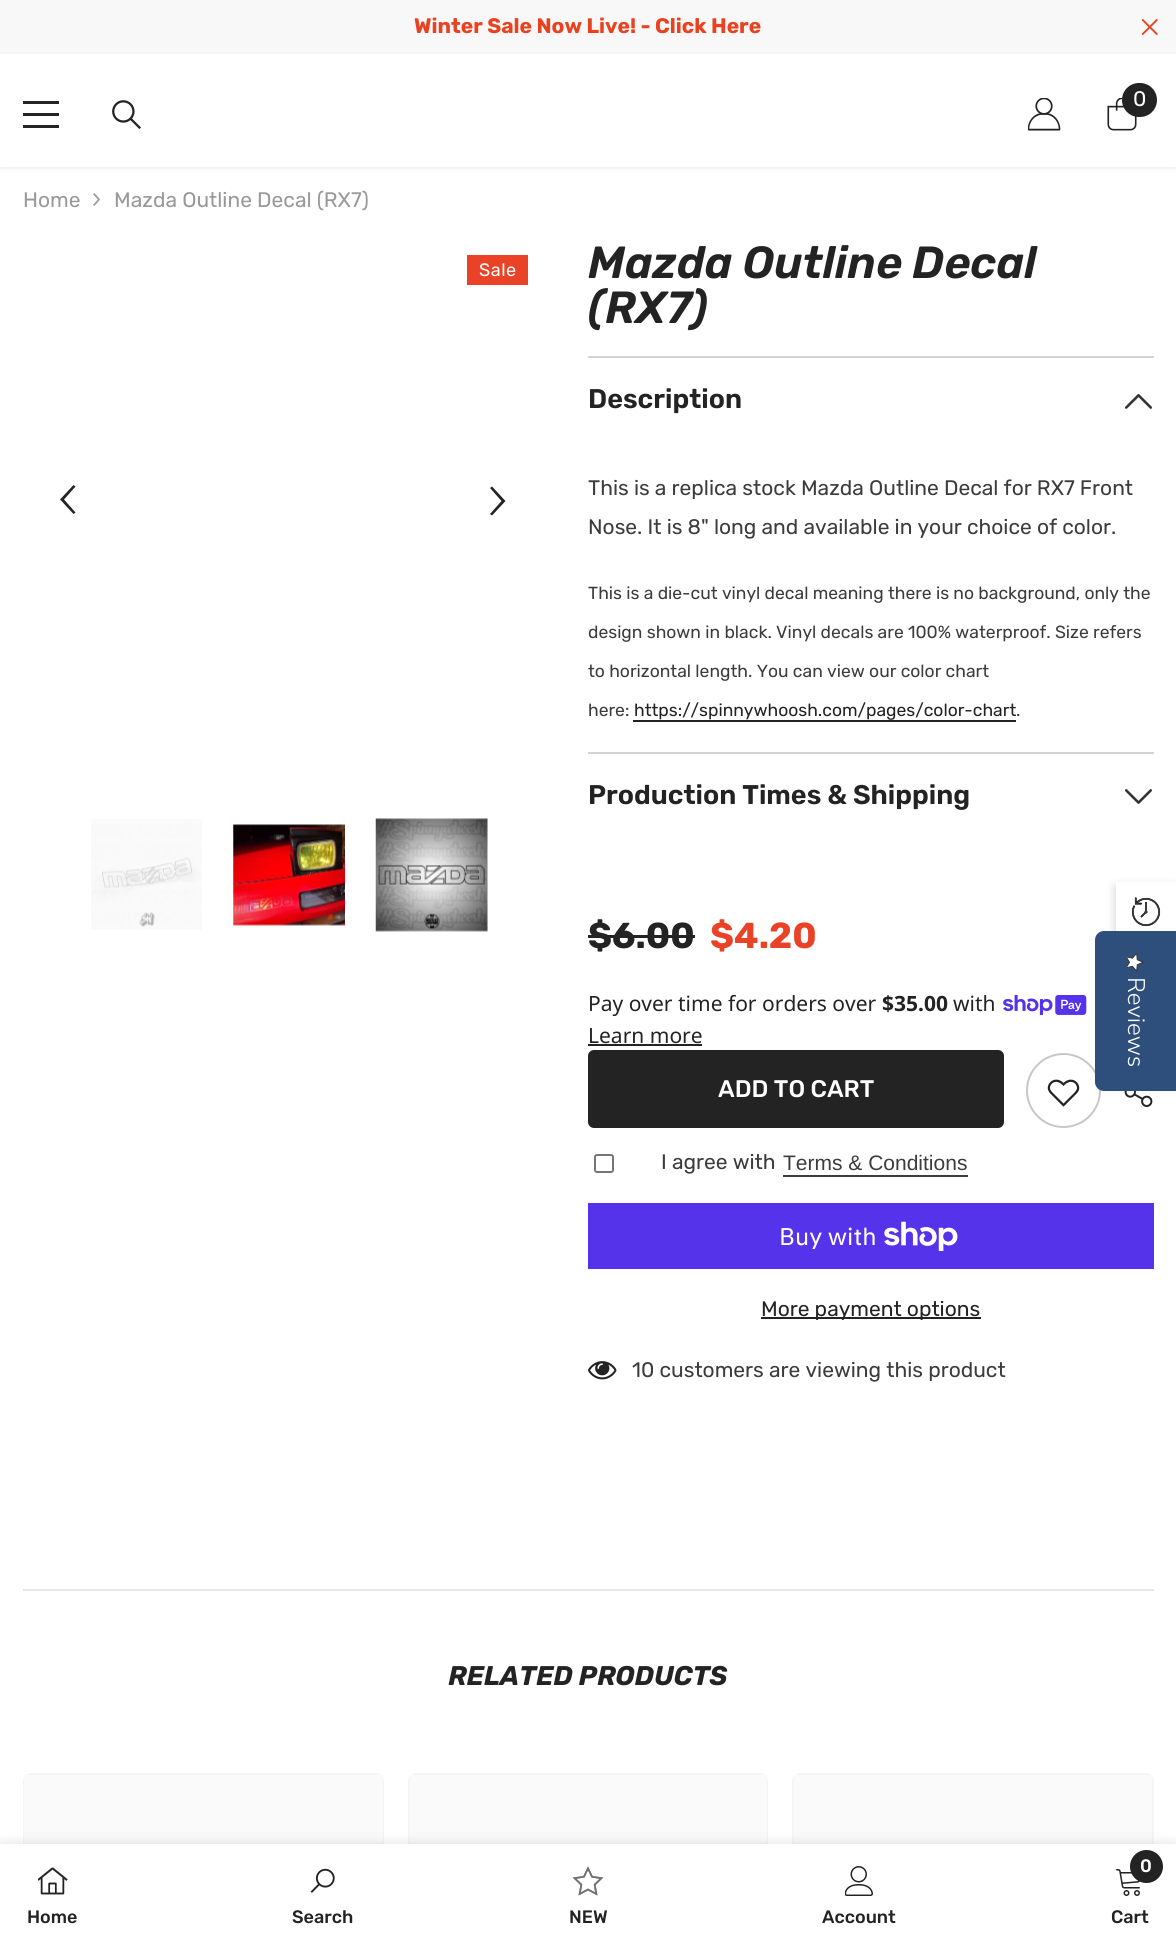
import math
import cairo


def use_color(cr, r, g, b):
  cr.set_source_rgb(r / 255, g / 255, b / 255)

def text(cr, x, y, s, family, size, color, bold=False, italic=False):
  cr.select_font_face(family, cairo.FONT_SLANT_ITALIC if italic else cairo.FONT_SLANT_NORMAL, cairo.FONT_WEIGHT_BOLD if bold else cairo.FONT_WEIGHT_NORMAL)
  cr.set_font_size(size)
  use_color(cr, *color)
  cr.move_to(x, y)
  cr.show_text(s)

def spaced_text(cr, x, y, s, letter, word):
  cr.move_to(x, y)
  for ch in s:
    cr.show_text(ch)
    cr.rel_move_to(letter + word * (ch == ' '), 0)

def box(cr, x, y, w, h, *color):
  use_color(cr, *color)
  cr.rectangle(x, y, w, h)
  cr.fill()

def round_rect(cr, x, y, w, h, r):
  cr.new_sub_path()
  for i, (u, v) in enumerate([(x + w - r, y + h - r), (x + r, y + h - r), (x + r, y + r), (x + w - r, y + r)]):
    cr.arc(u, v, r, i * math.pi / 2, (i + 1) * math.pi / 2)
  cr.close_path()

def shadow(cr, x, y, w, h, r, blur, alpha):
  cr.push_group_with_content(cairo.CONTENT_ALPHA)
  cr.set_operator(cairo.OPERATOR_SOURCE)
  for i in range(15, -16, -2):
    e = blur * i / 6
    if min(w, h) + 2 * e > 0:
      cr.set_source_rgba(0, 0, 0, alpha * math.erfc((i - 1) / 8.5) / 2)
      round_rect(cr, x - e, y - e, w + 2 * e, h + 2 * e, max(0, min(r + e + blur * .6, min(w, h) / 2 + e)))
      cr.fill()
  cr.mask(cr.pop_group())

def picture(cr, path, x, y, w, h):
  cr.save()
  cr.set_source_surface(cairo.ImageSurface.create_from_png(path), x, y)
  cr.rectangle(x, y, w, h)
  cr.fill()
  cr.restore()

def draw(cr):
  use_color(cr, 255, 255, 255)
  cr.paint()
  box(cr, 0, 0, 1176, 54, 248, 248, 248)
  picture(cr, "img_01.png", 1141, 19, 17, 16)
  use_color(cr, 0, 0, 0)
  shadow(cr, 0, 56, 1176, 112, 0, 2, 0.1)
  box(cr, 0, 54, 1176, 113, 255, 255, 255)
  box(cr, 23, 113, 36, 3, 35, 35, 35)
  box(cr, 23, 101, 36, 3, 35, 35, 35)
  box(cr, 23, 125, 36, 3, 35, 35, 35)
  picture(cr, "img_02.png", 112, 100, 29, 29)
  picture(cr, "img_03.png", 1028, 98, 33, 33)
  picture(cr, "img_04.png", 1107, 98, 30, 33)
  round_rect(cr, 1122, 83, 35, 34, 17)
  cr.fill()
  picture(cr, "img_05.png", 93, 193, 7, 13)
  box(cr, 467, 255, 61, 30, 234, 66, 38)
  use_color(cr, 35, 35, 35)
  cr.new_path()
  cr.move_to(73.5, 514)
  cr.line_to(75.5, 512.5)
  cr.line_to(64, 499.5)
  cr.line_to(75.5, 486.5)
  cr.line_to(73.5, 485)
  cr.line_to(60, 499.5)
  cr.line_to(61, 500.5)
  cr.close_path()
  cr.fill()
  cr.new_path()
  cr.move_to(492, 486.5)
  cr.line_to(490, 488)
  cr.line_to(501.5, 501)
  cr.line_to(490, 514)
  cr.line_to(492, 515.5)
  cr.line_to(505.5, 501)
  cr.line_to(504.5, 500)
  cr.close_path()
  cr.fill()
  picture(cr, "img_06.png", 91, 819, 111, 111)
  picture(cr, "img_07.png", 233, 824, 112, 102)
  picture(cr, "img_08.png", 375, 818, 113, 114)
  box(cr, 588, 356, 566, 2, 211, 211, 211)
  picture(cr, "img_09.png", 1125, 394, 27, 15)
  box(cr, 633, 720, 383, 2, 35, 35, 35)
  box(cr, 588, 752, 566, 2, 211, 211, 211)
  picture(cr, "img_10.png", 1125, 789, 27, 15)
  box(cr, 588, 935, 107, 3, 35, 35, 35)
  picture(cr, "img_11.png", 1003, 995, 84, 21)
  box(cr, 588, 1044, 114, 2, 35, 35, 35)
  round_rect(cr, 589, 1051, 414, 76, 5)
  cr.fill_preserve()
  cr.stroke()
  cr.arc(1063.5, 1090.5, 36.5, 0, 2 * math.pi)
  use_color(cr, 199, 199, 199)
  cr.stroke()
  picture(cr, "img_12.png", 1047, 1079, 33, 28)
  picture(cr, "img_13.png", 1124, 1091, 29, 16)
  round_rect(cr, 595, 1155, 18, 17, 2)
  use_color(cr, 118, 118, 118)
  cr.stroke()
  box(cr, 783, 1175, 185, 2, 60, 60, 60)
  box(cr, 588, 1203, 566, 66, 84, 51, 235)
  picture(cr, "img_14.png", 884, 1221, 74, 30)
  box(cr, 761, 1317, 220, 2, 35, 35, 35)
  picture(cr, "img_15.png", 588, 1361, 29, 19)
  box(cr, 23, 1589, 1131, 2, 232, 232, 232)
  round_rect(cr, 24, 1774, 359, 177, 7)
  use_color(cr, 245, 245, 245)
  cr.stroke()
  gradient = cairo.LinearGradient(-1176, 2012, 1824, 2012)
  gradient.add_color_stop_rgba(0.04, 0.98, 0.98, 0.98, 1)
  gradient.add_color_stop_rgba(0.25, 0.945, 0.949, 0.953, 1)
  gradient.add_color_stop_rgba(0.36, 0.98, 0.98, 0.98, 1)
  cr.set_source(gradient)
  cr.rectangle(24, 1775, 359, 69)
  cr.fill()
  round_rect(cr, 409, 1774, 358, 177, 7)
  use_color(cr, 245, 245, 245)
  cr.stroke()
  gradient = cairo.LinearGradient(-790, 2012, 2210, 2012)
  gradient.add_color_stop_rgba(0.04, 0.98, 0.98, 0.98, 1)
  gradient.add_color_stop_rgba(0.25, 0.945, 0.949, 0.953, 1)
  gradient.add_color_stop_rgba(0.36, 0.98, 0.98, 0.98, 1)
  cr.set_source(gradient)
  cr.rectangle(410, 1775, 357, 69)
  cr.fill()
  round_rect(cr, 793, 1774, 360, 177, 7)
  use_color(cr, 245, 245, 245)
  cr.stroke()
  gradient = cairo.LinearGradient(-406, 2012, 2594, 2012)
  gradient.add_color_stop_rgba(0.04, 0.98, 0.98, 0.98, 1)
  gradient.add_color_stop_rgba(0.25, 0.945, 0.949, 0.953, 1)
  gradient.add_color_stop_rgba(0.36, 0.98, 0.98, 0.98, 1)
  cr.set_source(gradient)
  cr.rectangle(794, 1775, 358, 69)
  cr.fill()
  use_color(cr, 0, 0, 0)
  shadow(cr, 0, 1844, 1176, 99, 0, 7, 0.12)
  box(cr, 0, 1844, 1176, 98, 255, 255, 255)
  picture(cr, "img_16.png", 38, 1867, 30, 28)
  picture(cr, "img_17.png", 310, 1868, 25, 25)
  picture(cr, "img_18.png", 573, 1866, 30, 30)
  picture(cr, "img_19.png", 845, 1866, 28, 30)
  picture(cr, "img_20.png", 1116, 1869, 24, 27)
  use_color(cr, 35, 35, 35)
  cr.arc(1146.5, 1866.5, 16.5, 0, 2 * math.pi)
  cr.fill()
  cr.save()
  cr.set_fill_rule(cairo.FILL_RULE_EVEN_ODD)
  cr.new_path()
  cr.move_to(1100, 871)
  cr.line_to(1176, 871)
  cr.line_to(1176, 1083)
  cr.line_to(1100, 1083)
  cr.close_path()
  cr.move_to(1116, 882)
  cr.line_to(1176, 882)
  cr.line_to(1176, 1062)
  cr.line_to(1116, 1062)
  cr.close_path()
  cr.clip()
  use_color(cr, 0, 0, 0)
  shadow(cr, 1116, 887, 60, 180, 0, 5, 0.2)
  cr.restore()
  picture(cr, "img_21.png", 1131, 897, 30, 30)
  use_color(cr, 46, 79, 124)
  cr.new_path()
  cr.move_to(1176, 931)
  cr.line_to(1176, 1091)
  cr.line_to(1104, 1091)
  cr.curve_to(1099, 1091, 1095, 1087, 1095, 1082)
  cr.line_to(1095, 940)
  cr.curve_to(1095, 935, 1099, 931, 1104, 931)
  cr.close_path()
  cr.fill()
  picture(cr, "img_22.png", 1126, 953, 19, 19)
  text(cr, 414, 33, "Winter Sale Now Live! - Click Here", "Rubik", 21, (234, 66, 32), bold=True)
  text(cr, 1133, 106, "0", "Rubik", 21, (255, 255, 255))
  text(cr, 23, 207, "Home", "Rubik", 21, (153, 153, 153))
  text(cr, 114, 207, "Mazda Outline Decal (RX7)", "Rubik", 21, (153, 153, 153))
  cr.set_font_size(18)
  use_color(cr, 255, 255, 255)
  spaced_text(cr, 479, 276, "Sale", 0.5, 0)
  text(cr, 588, 278, "Mazda Outline Decal", "Rubik SemiBold", 45, (35, 35, 35), italic=True)
  text(cr, 588, 323, "(RX7)", "Rubik SemiBold", 45, (35, 35, 35), italic=True)
  text(cr, 588, 408, "Description", "Rubik SemiBold", 27, (35, 35, 35))
  text(cr, 588, 495, "This is a replica stock Mazda Outline Decal for RX7 Front", "Rubik", 21, (60, 60, 60))
  text(cr, 588, 534, "Nose. It is 8\" long and available in your choice of color.", "Rubik", 21, (60, 60, 60))
  text(cr, 588, 599, "This is a die-cut vinyl decal meaning there is no background, only the", "Rubik", 17.5, (60, 60, 60))
  text(cr, 588, 638, "design shown in black. Vinyl decals are 100% waterproof. Size refers", "Rubik", 17.5, (60, 60, 60))
  text(cr, 588, 677, "to horizontal length. You can view our color chart", "Rubik", 17.5, (60, 60, 60))
  text(cr, 588, 716, "here:", "Rubik", 17.5, (60, 60, 60))
  text(cr, 634, 716, "https://spinnywhoosh.com/pages/color-chart", "Rubik", 17.5, (35, 35, 35))
  text(cr, 1016, 716, ".", "Rubik", 17.5, (60, 60, 60))
  text(cr, 588, 804, "Production Times & Shipping", "Rubik SemiBold", 27, (35, 35, 35))
  text(cr, 588, 948, "$6.00", "Rubik", 36, (35, 35, 35), bold=True)
  text(cr, 710, 948, "$4.20", "Rubik", 36, (234, 66, 38), bold=True)
  text(cr, 588, 1011, "Pay over time for orders over", "Noto Sans", 21, (35, 35, 35))
  text(cr, 882, 1011, "$35.00", "Noto Sans", 21, (35, 35, 35), bold=True)
  text(cr, 953, 1011, "with", "Noto Sans", 21, (35, 35, 35))
  text(cr, 588, 1043, "Learn more", "Noto Sans", 21, (35, 35, 35))
  text(cr, 718, 1097, "ADD TO CART", "Rubik Medium", 24, (255, 255, 255))
  text(cr, 661, 1169, "I agree with", "Rubik", 21, (60, 60, 60))
  text(cr, 783, 1170, "Terms & Conditions", "Liberation Sans", 21, (60, 60, 60))
  text(cr, 779, 1245, "Buy with", "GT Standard", 24, (255, 255, 255))
  text(cr, 761, 1316, "More payment options", "Rubik", 21, (35, 35, 35))
  text(cr, 632, 1377, "10 customers are viewing this product", "Rubik", 21, (60, 60, 60))
  text(cr, 448, 1685, "RELATED PRODUCTS", "Rubik", 27, (35, 35, 35), bold=True, italic=True)
  text(cr, 27, 1923, "Home", "Rubik Medium", 18, (35, 35, 35))
  text(cr, 292, 1923, "Search", "Rubik Medium", 18, (35, 35, 35))
  text(cr, 569, 1923, "NEW", "Rubik Medium", 18, (35, 35, 35))
  text(cr, 822, 1923, "Account", "Rubik Medium", 18, (35, 35, 35))
  text(cr, 1140, 1872, "0", "Rubik Medium", 18, (255, 255, 255))
  text(cr, 1111, 1923, "Cart", "Rubik Medium", 18, (35, 35, 35))
  cr.save()
  cr.translate(1128, 977)
  cr.rotate(90 * math.pi / 180)
  text(cr, 0, 0, "Reviews", "Nunito Sans Light", 24, (255, 255, 255))
  cr.restore()


surface = cairo.ImageSurface(cairo.FORMAT_RGB24, 1176, 1942)
cr = cairo.Context(surface)
options = cairo.FontOptions()
options.set_hint_metrics(cairo.HINT_METRICS_OFF)
options.set_hint_style(cairo.HINT_STYLE_NONE)
cr.set_font_options(options)
cr.set_miter_limit(4)
draw(cr)
surface.write_to_png("out.png")
